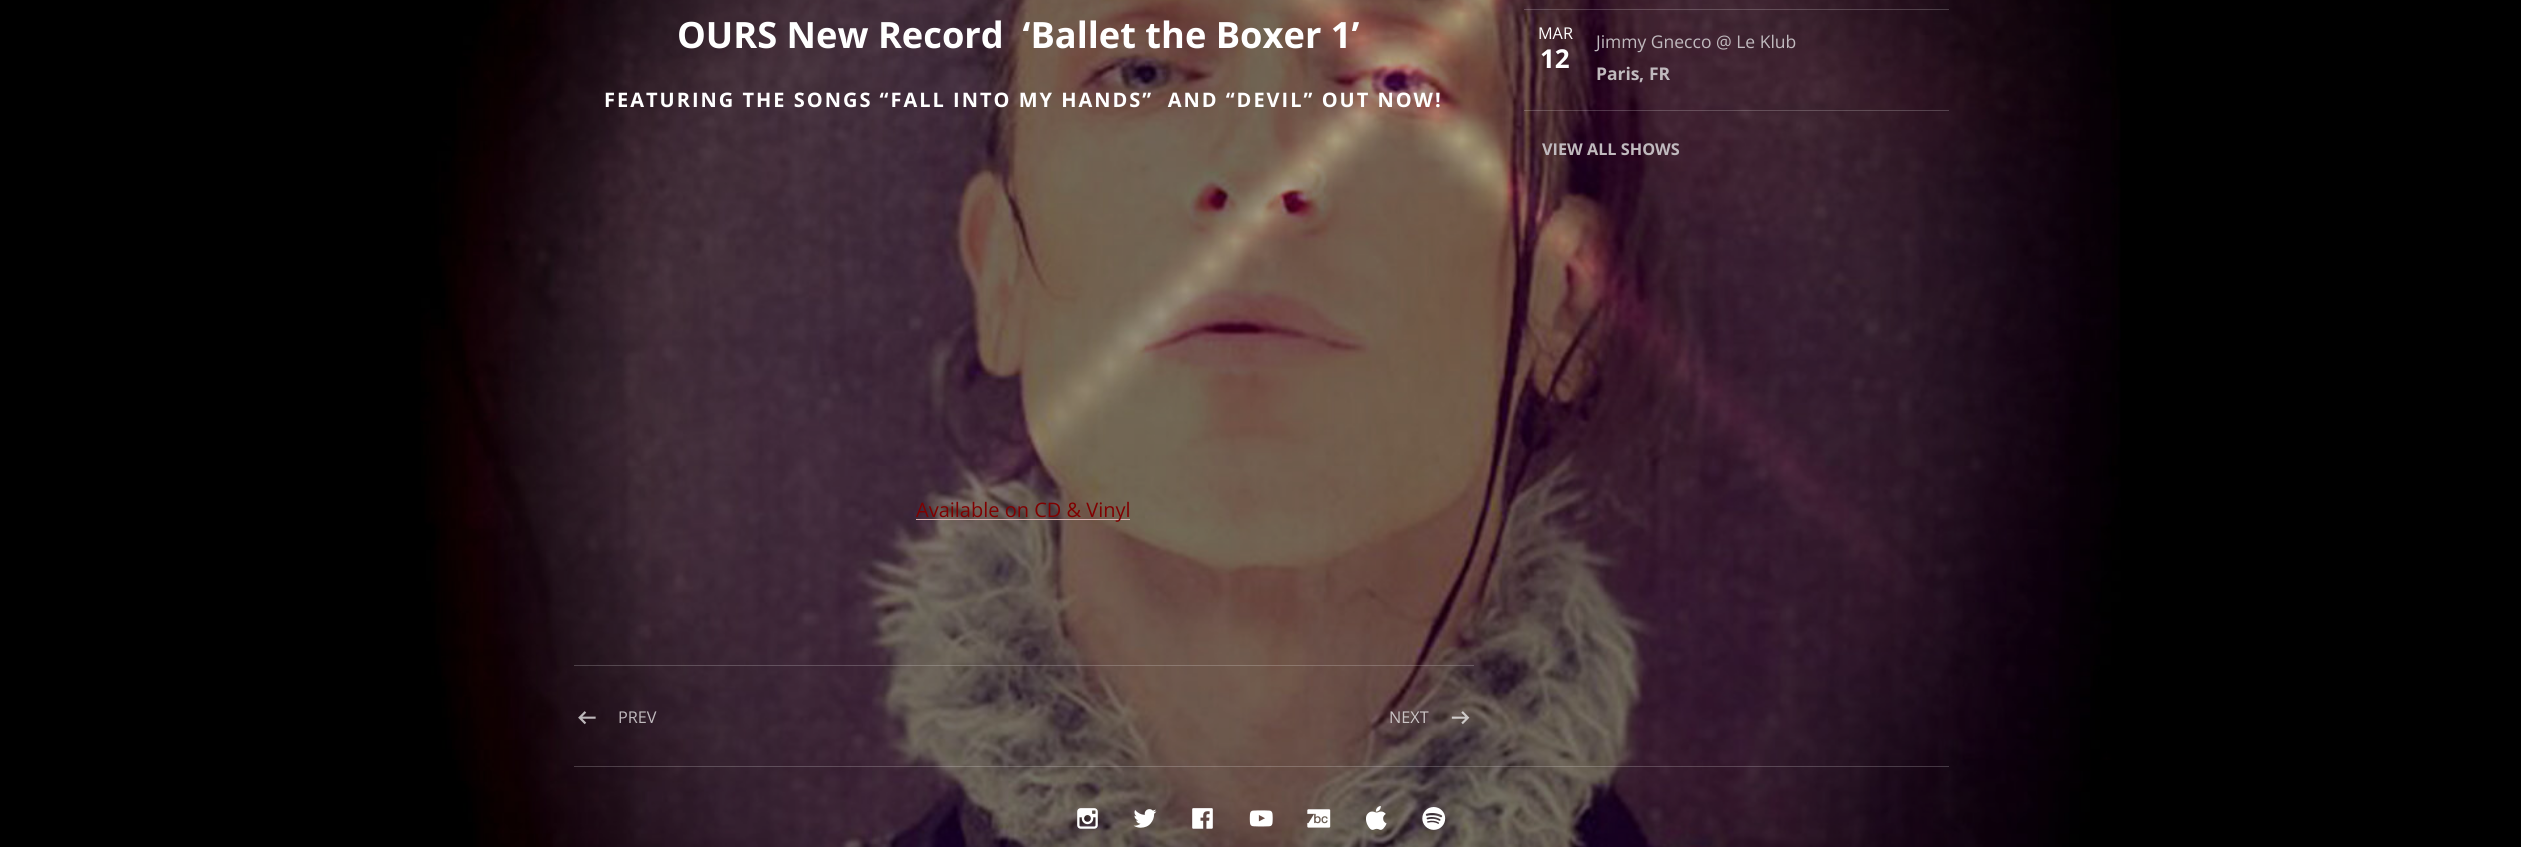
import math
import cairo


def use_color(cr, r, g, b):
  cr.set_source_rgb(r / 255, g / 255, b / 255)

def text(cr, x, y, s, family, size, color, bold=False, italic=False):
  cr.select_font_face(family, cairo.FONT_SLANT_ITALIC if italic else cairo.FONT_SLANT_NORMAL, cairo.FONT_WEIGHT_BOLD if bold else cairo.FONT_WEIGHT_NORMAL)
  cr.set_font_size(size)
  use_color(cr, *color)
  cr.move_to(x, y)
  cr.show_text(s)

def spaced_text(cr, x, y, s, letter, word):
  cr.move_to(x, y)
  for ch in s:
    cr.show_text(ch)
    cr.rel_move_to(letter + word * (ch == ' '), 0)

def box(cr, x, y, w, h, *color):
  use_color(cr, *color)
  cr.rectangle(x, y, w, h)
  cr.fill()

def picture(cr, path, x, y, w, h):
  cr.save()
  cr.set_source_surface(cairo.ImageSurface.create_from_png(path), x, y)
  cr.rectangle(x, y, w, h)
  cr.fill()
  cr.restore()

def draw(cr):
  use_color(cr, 0, 0, 0)
  cr.paint()
  picture(cr, "img_01.png", 420, 0, 1701, 847)
  box(cr, 916, 519, 214, 1, 217, 179, 179)
  cr.set_source_rgba(1, 1, 1, 0.2)
  cr.rectangle(574, 665, 900, 1)
  cr.fill()
  picture(cr, "img_02.png", 578, 711, 18, 14)
  picture(cr, "img_03.png", 1451, 711, 19, 14)
  cr.rectangle(1524, 9, 425, 1)
  cr.fill()
  cr.rectangle(1524, 110, 425, 1)
  cr.fill()
  cr.rectangle(574, 766, 1375, 1)
  cr.fill()
  picture(cr, "img_04.png", 1077, 808, 21, 21)
  picture(cr, "img_05.png", 1133, 809, 24, 19)
  picture(cr, "img_06.png", 1192, 808, 21, 21)
  picture(cr, "img_07.png", 1249, 810, 24, 17)
  picture(cr, "img_08.png", 1307, 809, 24, 19)
  picture(cr, "img_09.png", 1366, 806, 21, 24)
  picture(cr, "img_10.png", 1422, 807, 24, 23)
  text(cr, 677, 48, "OURS New Record  ‘Ballet the Boxer 1’", "Open Sans", 36.25, (255, 255, 255), bold=True)
  cr.set_font_size(20)
  spaced_text(cr, 604, 107, "FEATURING THE SONGS “FALL INTO MY HANDS”  AND “DEVIL” OUT NOW!", 2, 0)
  text(cr, 916, 517, "Available on CD & Vinyl", "Open Sans", 20, (128, 0, 0))
  text(cr, 618, 723, "PREV", "Open Sans", 16.25, (192, 186, 190))
  text(cr, 1389, 723, "NEXT", "Open Sans", 16.25, (203, 197, 198))
  text(cr, 1538, 39, "MAR", "Open Sans", 16.25, (255, 255, 255))
  text(cr, 1540, 68, "12", "Open Sans", 26, (255, 255, 255), bold=True)
  text(cr, 1596, 48, "Jimmy Gnecco @ Le Klub", "Open Sans", 17.5, (192, 186, 190))
  text(cr, 1596, 80, "Paris", "Open Sans", 17.5, (192, 186, 190), bold=True)
  text(cr, 1639, 80, ",", "Open Sans", 17.5, (192, 186, 190), bold=True)
  text(cr, 1649, 80, "FR", "Open Sans", 17.5, (192, 186, 190), bold=True)
  text(cr, 1542, 155, "VIEW ALL SHOWS", "Open Sans", 16.25, (192, 186, 190), bold=True)


surface = cairo.ImageSurface(cairo.FORMAT_RGB24, 2521, 847)
cr = cairo.Context(surface)
options = cairo.FontOptions()
options.set_hint_metrics(cairo.HINT_METRICS_OFF)
options.set_hint_style(cairo.HINT_STYLE_NONE)
cr.set_font_options(options)
cr.set_miter_limit(4)
draw(cr)
surface.write_to_png("out.png")
